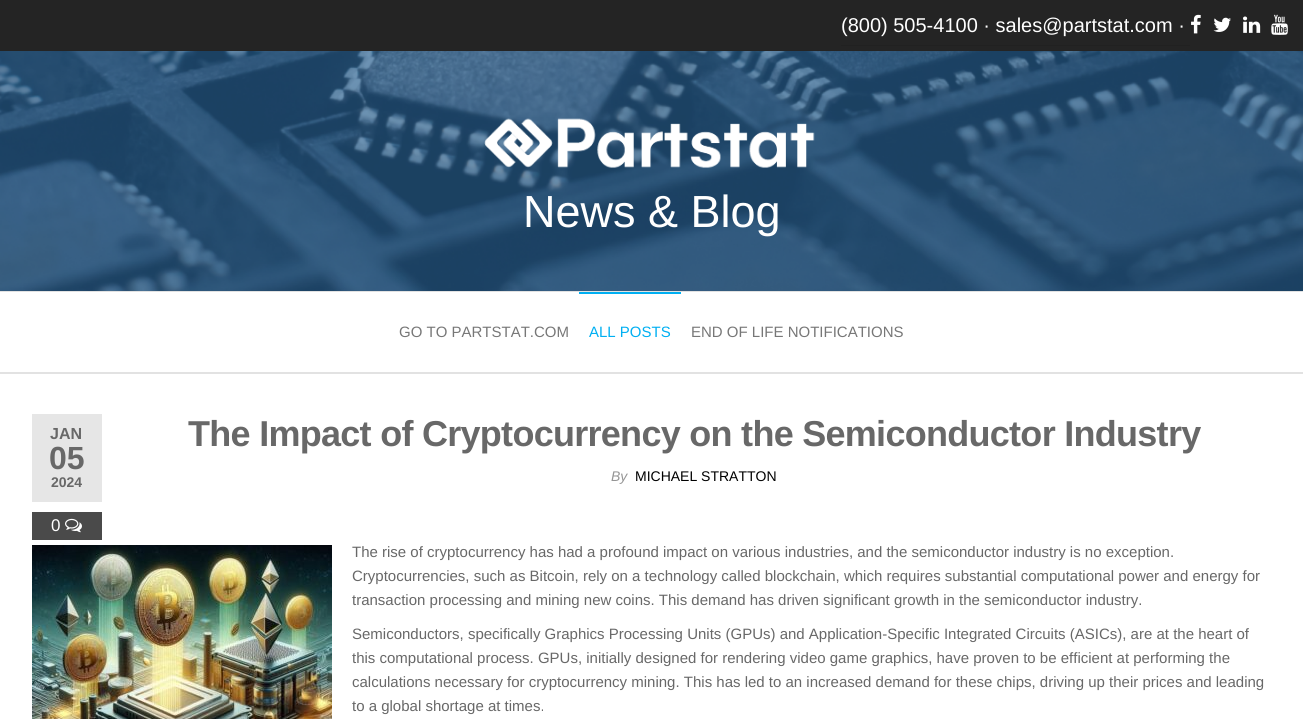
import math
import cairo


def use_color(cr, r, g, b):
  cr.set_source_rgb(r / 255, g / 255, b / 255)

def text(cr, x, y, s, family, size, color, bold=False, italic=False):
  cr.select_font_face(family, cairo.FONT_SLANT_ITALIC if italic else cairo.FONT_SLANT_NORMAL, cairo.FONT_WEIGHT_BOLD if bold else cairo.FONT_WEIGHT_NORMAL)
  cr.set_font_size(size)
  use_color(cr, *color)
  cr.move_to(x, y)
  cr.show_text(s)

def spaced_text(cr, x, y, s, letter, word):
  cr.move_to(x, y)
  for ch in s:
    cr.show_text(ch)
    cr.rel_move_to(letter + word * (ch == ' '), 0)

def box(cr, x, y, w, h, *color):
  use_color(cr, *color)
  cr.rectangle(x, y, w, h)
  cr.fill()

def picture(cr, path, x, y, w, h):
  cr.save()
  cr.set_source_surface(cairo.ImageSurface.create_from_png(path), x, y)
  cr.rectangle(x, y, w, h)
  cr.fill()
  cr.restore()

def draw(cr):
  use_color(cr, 255, 255, 255)
  cr.paint()
  box(cr, 0, 0, 1303, 51, 36, 36, 36)
  box(cr, 841, 45, 349, 1, 33, 33, 33)
  picture(cr, "img_01.png", 1191, 14, 10, 20)
  picture(cr, "img_02.png", 1213, 17, 18, 15)
  picture(cr, "img_03.png", 1243, 16, 18, 17)
  picture(cr, "img_04.png", 1271, 14, 17, 21)
  picture(cr, "img_05.png", 0, 51, 1303, 240)
  box(cr, 0, 291, 1303, 1, 226, 226, 226)
  picture(cr, "img_06.png", 484, 118, 331, 50)
  box(cr, 579, 292, 102, 2, 0, 175, 242)
  box(cr, 0, 372, 1303, 2, 226, 226, 226)
  box(cr, 32, 414, 70, 88, 230, 230, 230)
  box(cr, 32, 512, 70, 28, 74, 74, 74)
  picture(cr, "img_07.png", 65, 518, 17, 15)
  picture(cr, "img_08.png", 32, 545, 300, 174)
  text(cr, 841, 32, "(800) 505-4100 · sales@partstat.com ·", "Liberation Sans", 20, (255, 255, 255))
  text(cr, 523, 227, "News & Blog", "Liberation Sans", 45, (255, 255, 255))
  text(cr, 399, 337, "GO TO PARTSTAT.COM", "Liberation Sans", 15, (119, 119, 119))
  text(cr, 589, 337, "ALL POSTS", "Liberation Sans", 15, (0, 175, 242))
  text(cr, 691, 337, "END OF LIFE NOTIFICATIONS", "Liberation Sans", 15, (119, 119, 119))
  text(cr, 50, 439, "JAN", "Liberation Sans", 16, (104, 104, 104), bold=True)
  text(cr, 49, 469, "05", "Liberation Sans", 32, (104, 104, 104), bold=True)
  text(cr, 51, 487, "2024", "Liberation Sans", 14, (104, 104, 104), bold=True)
  text(cr, 51, 531, "0", "Liberation Sans", 17, (255, 255, 255))
  cr.select_font_face("Liberation Sans", cairo.FONT_SLANT_NORMAL, cairo.FONT_WEIGHT_BOLD)
  cr.set_font_size(36)
  use_color(cr, 104, 104, 104)
  spaced_text(cr, 188, 446, "The Impact of Cryptocurrency on the Semiconductor Industry", -0.72, 0)
  text(cr, 611, 481, "By", "Liberation Sans", 14, (149, 149, 149), italic=True)
  text(cr, 635, 481, "MICHAEL STRATTON", "Liberation Sans", 14, (0, 0, 0))
  text(cr, 352, 557, "The rise of cryptocurrency has had a profound impact on various industries, and the semiconductor industry is no exception.", "Liberation Sans", 15, (104, 104, 104))
  text(cr, 352, 581, "Cryptocurrencies, such as Bitcoin, rely on a technology called blockchain, which requires substantial computational power and energy for", "Liberation Sans", 15, (104, 104, 104))
  text(cr, 352, 605, "transaction processing and mining new coins. This demand has driven significant growth in the semiconductor industry.", "Liberation Sans", 15, (104, 104, 104))
  text(cr, 352, 639, "Semiconductors, specifically Graphics Processing Units (GPUs) and Application-Specific Integrated Circuits (ASICs), are at the heart of", "Liberation Sans", 15, (104, 104, 104))
  text(cr, 352, 663, "this computational process. GPUs, initially designed for rendering video game graphics, have proven to be efficient at performing the", "Liberation Sans", 15, (104, 104, 104))
  text(cr, 352, 687, "calculations necessary for cryptocurrency mining. This has led to an increased demand for these chips, driving up their prices and leading", "Liberation Sans", 15, (104, 104, 104))
  text(cr, 352, 711, "to a global shortage at times.", "Liberation Sans", 15, (104, 104, 104))


surface = cairo.ImageSurface(cairo.FORMAT_RGB24, 1303, 719)
cr = cairo.Context(surface)
options = cairo.FontOptions()
options.set_hint_metrics(cairo.HINT_METRICS_OFF)
options.set_hint_style(cairo.HINT_STYLE_NONE)
cr.set_font_options(options)
cr.set_miter_limit(4)
draw(cr)
surface.write_to_png("out.png")
